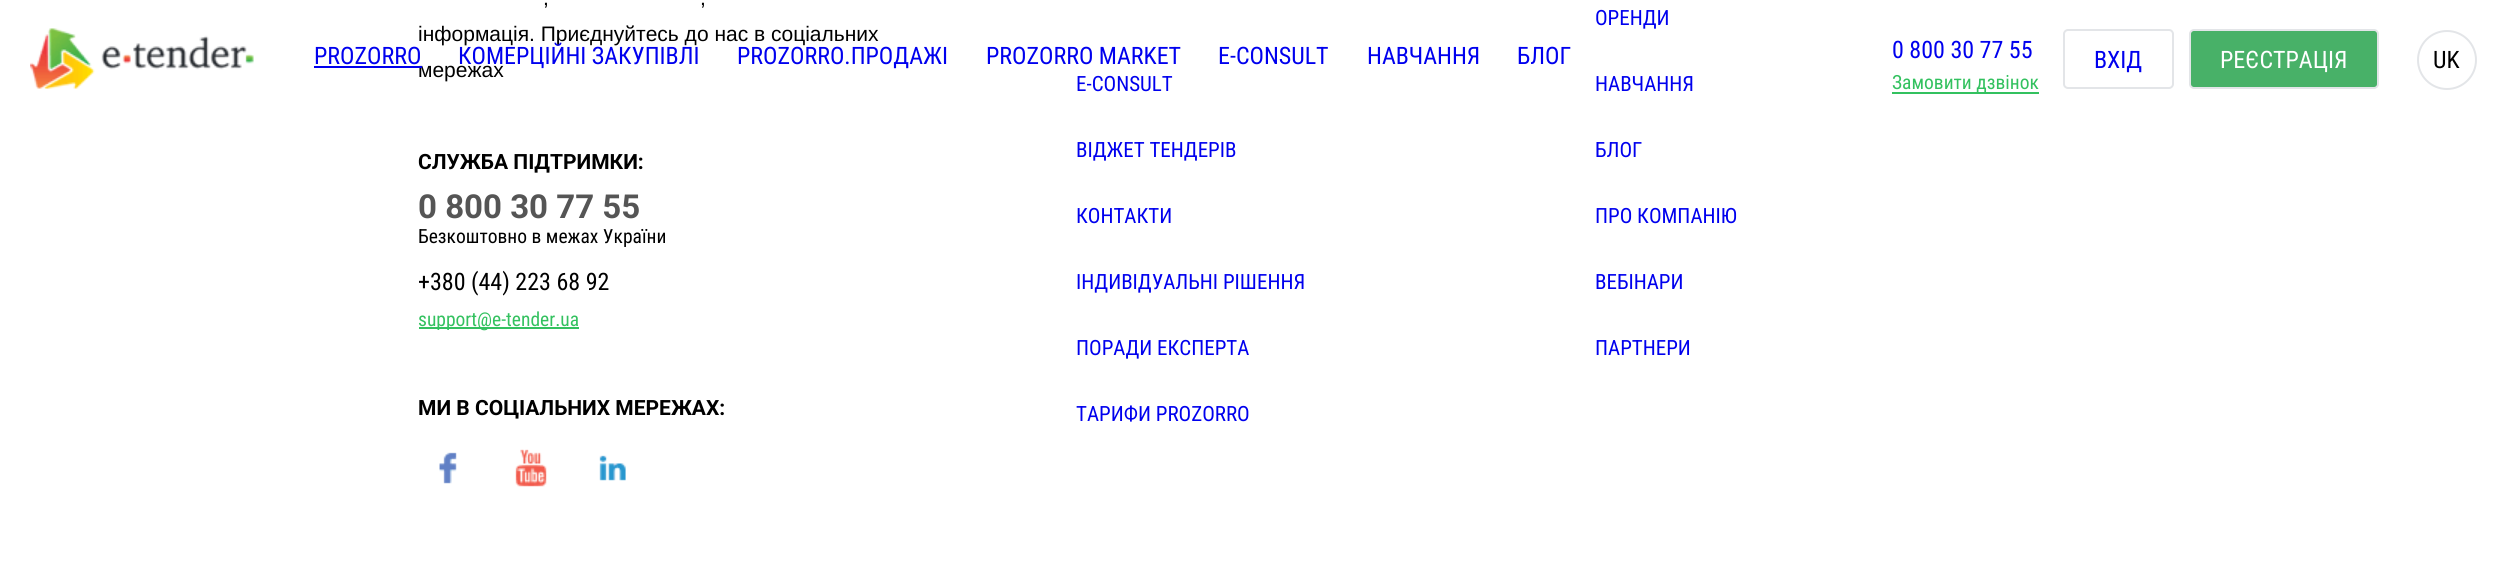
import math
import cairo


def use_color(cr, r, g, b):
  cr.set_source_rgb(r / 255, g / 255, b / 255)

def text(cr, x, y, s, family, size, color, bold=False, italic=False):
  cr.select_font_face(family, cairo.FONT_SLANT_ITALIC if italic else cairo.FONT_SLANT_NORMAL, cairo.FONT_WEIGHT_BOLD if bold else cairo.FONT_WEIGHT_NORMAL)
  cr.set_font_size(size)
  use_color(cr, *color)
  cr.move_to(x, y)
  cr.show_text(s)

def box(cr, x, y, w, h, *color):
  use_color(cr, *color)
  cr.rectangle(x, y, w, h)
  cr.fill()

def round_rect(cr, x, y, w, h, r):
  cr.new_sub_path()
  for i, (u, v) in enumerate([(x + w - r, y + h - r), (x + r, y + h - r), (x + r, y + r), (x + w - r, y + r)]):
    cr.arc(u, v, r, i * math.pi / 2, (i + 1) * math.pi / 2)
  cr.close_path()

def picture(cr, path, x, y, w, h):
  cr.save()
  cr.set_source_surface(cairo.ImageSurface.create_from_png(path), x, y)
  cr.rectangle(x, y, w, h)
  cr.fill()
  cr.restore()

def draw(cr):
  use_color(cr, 255, 255, 255)
  cr.paint()
  box(cr, 419, 327, 160, 2, 51, 193, 95)
  picture(cr, "img_01.png", 439, 452, 18, 32)
  picture(cr, "img_02.png", 515, 449, 32, 38)
  picture(cr, "img_03.png", 599, 455, 27, 26)
  picture(cr, "img_04.png", 30, 28, 224, 61)
  round_rect(cr, 2064, 30, 109, 58, 4)
  use_color(cr, 227, 229, 232)
  cr.stroke()
  use_color(cr, 72, 177, 104)
  round_rect(cr, 2190, 30, 188, 58, 4)
  cr.fill_preserve()
  use_color(cr, 227, 229, 232)
  cr.stroke()
  cr.arc(2447, 60, 29, 0, 2 * math.pi)
  cr.stroke()
  box(cr, 1892, 92, 147, 2, 51, 193, 95)
  text(cr, 543, 5, ",", "Liberation Sans", 21, (0, 0, 0))
  text(cr, 700, 5, ",", "Liberation Sans", 21, (0, 0, 0))
  text(cr, 418, 41, "інформація. Приєднуйтесь до нас в соціальних", "Liberation Sans", 21, (0, 0, 0))
  text(cr, 418, 77, "мережах", "Liberation Sans", 21, (0, 0, 0))
  text(cr, 418, 169, "СЛУЖБА ПІДТРИМКИ:", "Roboto", 21, (0, 0, 0), bold=True)
  text(cr, 418, 218, "0 800 30 77 55", "Roboto", 33, (85, 85, 85), bold=True)
  text(cr, 418, 243, "Безкоштовно в межах України", "Roboto Condensed", 19.5, (0, 0, 0))
  text(cr, 418, 290, "+380 (44) 223 68 92", "Roboto Condensed", 24, (0, 0, 0))
  text(cr, 418, 326, "support@e-tender.ua", "Roboto Condensed", 19.5, (51, 193, 95))
  text(cr, 418, 415, "МИ В СОЦІАЛЬНИХ МЕРЕЖАХ:", "Roboto", 21, (0, 0, 0), bold=True)
  text(cr, 1595, 25, "ОРЕНДИ", "Roboto Condensed", 21, (0, 0, 238))
  text(cr, 1076, 91, "E-CONSULT", "Roboto Condensed", 21, (0, 0, 238))
  text(cr, 1595, 91, "НАВЧАННЯ", "Roboto Condensed", 21, (0, 0, 238))
  text(cr, 1076, 157, "ВІДЖЕТ ТЕНДЕРІВ", "Roboto Condensed", 21, (0, 0, 238))
  text(cr, 1595, 157, "БЛОГ", "Roboto Condensed", 21, (0, 0, 238))
  text(cr, 1076, 223, "КОНТАКТИ", "Roboto Condensed", 21, (0, 0, 238))
  text(cr, 1595, 223, "ПРО КОМПАНІЮ", "Roboto Condensed", 21, (0, 0, 238))
  text(cr, 1076, 289, "ІНДИВІДУАЛЬНІ РІШЕННЯ", "Roboto Condensed", 21, (0, 0, 238))
  text(cr, 1595, 289, "ВЕБІНАРИ", "Roboto Condensed", 21, (0, 0, 238))
  text(cr, 1076, 355, "ПОРАДИ ЕКСПЕРТА", "Roboto Condensed", 21, (0, 0, 238))
  text(cr, 1595, 355, "ПАРТНЕРИ", "Roboto Condensed", 21, (0, 0, 238))
  text(cr, 1076, 421, "ТАРИФИ PROZORRO", "Roboto Condensed", 21, (0, 0, 238))
  text(cr, 314, 64, "PROZORRO", "Roboto Condensed", 24, (0, 0, 238))
  box(cr, 314, 66, 108, 2, 0, 0, 238)
  text(cr, 458, 64, "КОМЕРЦІЙНІ ЗАКУПІВЛІ", "Roboto Condensed", 24, (0, 0, 238))
  text(cr, 737, 64, "PROZORRO.ПРОДАЖІ", "Roboto Condensed", 24, (0, 0, 238))
  text(cr, 986, 64, "PROZORRO MARKET", "Roboto Condensed", 24, (0, 0, 238))
  text(cr, 1218, 64, "E-CONSULT", "Roboto Condensed", 24, (0, 0, 238))
  text(cr, 1367, 64, "НАВЧАННЯ", "Roboto Condensed", 24, (0, 0, 238))
  text(cr, 1517, 64, "БЛОГ", "Roboto Condensed", 24, (0, 0, 238))
  text(cr, 1892, 58, "0 800 30 77 55", "Roboto Condensed", 24, (0, 0, 238))
  text(cr, 2094, 68, "ВХІД", "Roboto Condensed", 24, (0, 0, 238))
  text(cr, 2220, 68, "РЕЄСТРАЦІЯ", "Roboto Condensed", 24, (255, 255, 255))
  text(cr, 2433, 68, "UK", "Roboto Condensed", 24, (0, 0, 0))
  text(cr, 1892, 89, "Замовити дзвінок", "Roboto Condensed", 19.5, (51, 193, 95))


surface = cairo.ImageSurface(cairo.FORMAT_RGB24, 2506, 583)
cr = cairo.Context(surface)
options = cairo.FontOptions()
options.set_hint_metrics(cairo.HINT_METRICS_OFF)
options.set_hint_style(cairo.HINT_STYLE_NONE)
cr.set_font_options(options)
cr.set_miter_limit(4)
draw(cr)
surface.write_to_png("out.png")
